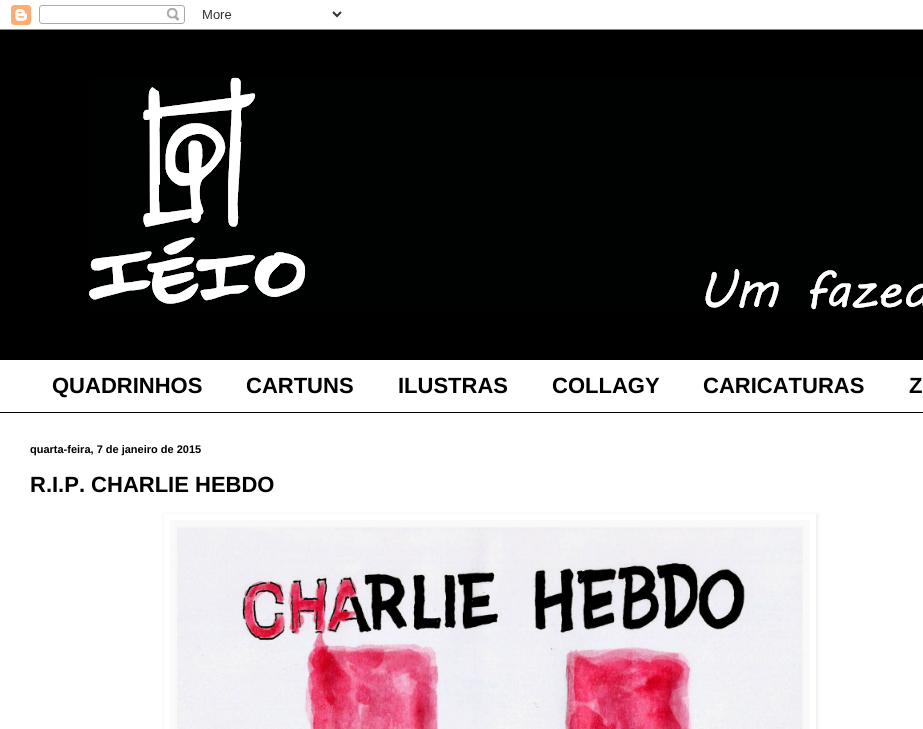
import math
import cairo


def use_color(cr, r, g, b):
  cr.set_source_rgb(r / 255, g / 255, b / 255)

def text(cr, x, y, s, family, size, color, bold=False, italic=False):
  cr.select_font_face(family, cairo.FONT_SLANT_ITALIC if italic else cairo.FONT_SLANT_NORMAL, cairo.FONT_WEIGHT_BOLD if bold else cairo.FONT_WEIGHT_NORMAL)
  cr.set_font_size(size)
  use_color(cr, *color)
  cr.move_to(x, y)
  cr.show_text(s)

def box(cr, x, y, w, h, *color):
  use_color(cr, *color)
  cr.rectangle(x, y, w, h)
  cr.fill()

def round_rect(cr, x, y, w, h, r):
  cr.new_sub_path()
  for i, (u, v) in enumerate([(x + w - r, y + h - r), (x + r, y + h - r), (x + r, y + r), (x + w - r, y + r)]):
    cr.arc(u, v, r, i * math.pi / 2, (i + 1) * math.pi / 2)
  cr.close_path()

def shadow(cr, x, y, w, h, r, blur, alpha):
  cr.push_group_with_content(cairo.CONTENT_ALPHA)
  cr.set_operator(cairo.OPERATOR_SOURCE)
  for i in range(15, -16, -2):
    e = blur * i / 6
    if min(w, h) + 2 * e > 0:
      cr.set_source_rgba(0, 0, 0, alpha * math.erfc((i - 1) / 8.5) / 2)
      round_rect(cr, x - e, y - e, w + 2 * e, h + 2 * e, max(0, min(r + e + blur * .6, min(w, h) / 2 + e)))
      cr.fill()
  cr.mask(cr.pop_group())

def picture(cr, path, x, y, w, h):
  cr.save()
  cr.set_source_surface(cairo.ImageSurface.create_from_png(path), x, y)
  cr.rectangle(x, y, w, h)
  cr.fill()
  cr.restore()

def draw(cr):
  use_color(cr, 255, 255, 255)
  cr.paint()
  picture(cr, "img_01.png", 0, 5, 923, 25)
  box(cr, 0, 30, 923, 330, 0, 0, 0)
  picture(cr, "img_02.png", 89, 77, 834, 233)
  box(cr, 0, 412, 923, 1, 0, 0, 0)
  cr.save()
  cr.set_fill_rule(cairo.FILL_RULE_EVEN_ODD)
  cr.new_path()
  cr.move_to(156, 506)
  cr.line_to(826, 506)
  cr.line_to(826, 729)
  cr.line_to(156, 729)
  cr.close_path()
  cr.move_to(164, 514)
  cr.line_to(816, 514)
  cr.line_to(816, 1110)
  cr.line_to(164, 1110)
  cr.close_path()
  cr.clip()
  use_color(cr, 0, 0, 0)
  shadow(cr, 165, 515, 652, 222, 0, 2.5, 0.1)
  cr.restore()
  picture(cr, "img_03.png", 170, 520, 640, 209)
  text(cr, 52, 393, "QUADRINHOS", "Liberation Sans", 22, (0, 0, 0), bold=True)
  text(cr, 246, 393, "CARTUNS", "Liberation Sans", 22, (0, 0, 0), bold=True)
  text(cr, 398, 393, "ILUSTRAS", "Liberation Sans", 22, (0, 0, 0), bold=True)
  text(cr, 552, 393, "COLLAGY", "Liberation Sans", 22, (0, 0, 0), bold=True)
  text(cr, 703, 393, "CARICATURAS", "Liberation Sans", 22, (0, 0, 0), bold=True)
  text(cr, 909, 393, "Z", "Liberation Sans", 22, (0, 0, 0), bold=True)
  text(cr, 30, 453, "quarta-feira, 7 de janeiro de 2015", "Liberation Sans", 11, (0, 0, 0), bold=True)
  text(cr, 30, 492, "R.I.P. CHARLIE HEBDO", "Liberation Sans", 22, (0, 0, 0), bold=True)


surface = cairo.ImageSurface(cairo.FORMAT_RGB24, 923, 729)
cr = cairo.Context(surface)
options = cairo.FontOptions()
options.set_hint_metrics(cairo.HINT_METRICS_OFF)
options.set_hint_style(cairo.HINT_STYLE_NONE)
cr.set_font_options(options)
cr.set_miter_limit(4)
draw(cr)
surface.write_to_png("out.png")
